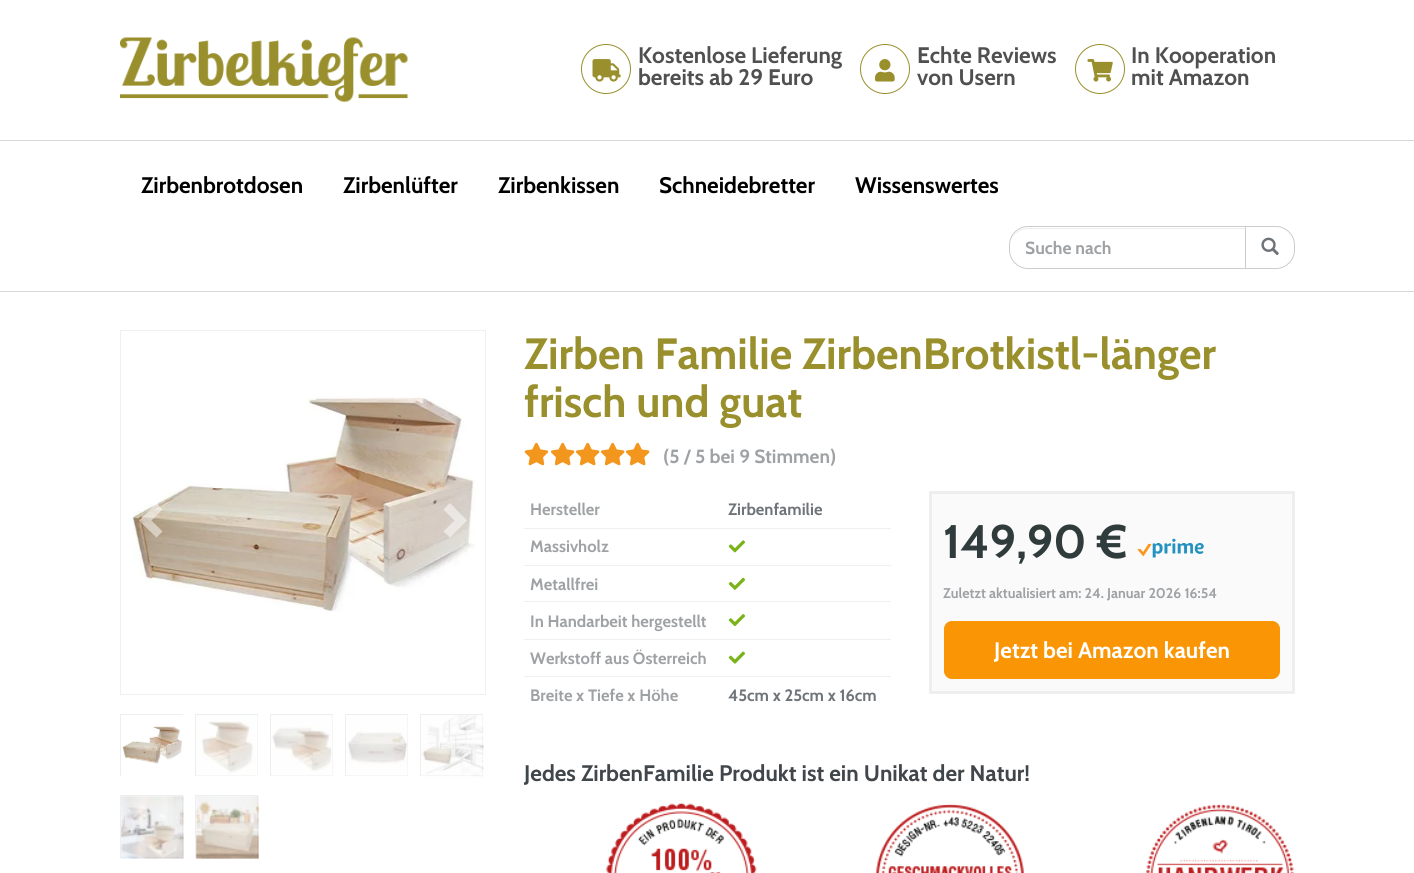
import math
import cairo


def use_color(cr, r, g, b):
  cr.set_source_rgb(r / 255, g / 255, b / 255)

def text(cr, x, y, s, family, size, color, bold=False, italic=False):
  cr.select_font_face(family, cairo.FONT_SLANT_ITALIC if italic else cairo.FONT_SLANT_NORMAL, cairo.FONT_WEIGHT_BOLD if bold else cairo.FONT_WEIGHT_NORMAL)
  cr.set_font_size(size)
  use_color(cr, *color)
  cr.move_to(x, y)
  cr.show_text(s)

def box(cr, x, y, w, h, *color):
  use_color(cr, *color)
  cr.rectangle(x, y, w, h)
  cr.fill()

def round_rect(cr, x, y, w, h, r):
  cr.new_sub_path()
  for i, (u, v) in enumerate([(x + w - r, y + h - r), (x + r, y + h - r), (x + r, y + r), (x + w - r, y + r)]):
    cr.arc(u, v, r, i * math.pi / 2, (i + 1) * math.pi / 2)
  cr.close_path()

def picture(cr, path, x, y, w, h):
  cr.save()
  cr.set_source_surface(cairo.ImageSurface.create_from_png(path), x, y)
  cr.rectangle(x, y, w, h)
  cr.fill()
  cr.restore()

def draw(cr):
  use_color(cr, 255, 255, 255)
  cr.paint()
  picture(cr, "img_01.png", 120, 37, 288, 65)
  cr.arc(606, 69, 24.5, 0, 2 * math.pi)
  use_color(cr, 153, 143, 45)
  cr.set_line_width(1)
  cr.stroke()
  picture(cr, "img_02.png", 592, 59, 29, 23)
  cr.arc(885, 69, 24.5, 0, 2 * math.pi)
  cr.stroke()
  picture(cr, "img_03.png", 875, 59, 20, 23)
  cr.arc(1100, 69, 24.5, 0, 2 * math.pi)
  cr.stroke()
  picture(cr, "img_04.png", 1087, 59, 26, 23)
  box(cr, 0, 140, 1414, 1, 215, 215, 215)
  box(cr, 0, 291, 1414, 1, 215, 215, 215)
  use_color(cr, 236, 236, 236)
  cr.new_path()
  cr.move_to(1028, 229)
  cr.line_to(1245, 229)
  cr.line_to(1245, 228)
  cr.line_to(1028, 228)
  cr.curve_to(1018, 228, 1010, 236, 1010, 246)
  cr.curve_to(1010, 237, 1018, 229, 1028, 229)
  cr.close_path()
  cr.fill()
  cr.new_path()
  cr.move_to(1028, 226.5)
  cr.line_to(1245.5, 226.5)
  cr.line_to(1245.5, 268.5)
  cr.line_to(1028, 268.5)
  cr.curve_to(1018, 268.5, 1009.5, 260, 1009.5, 250)
  cr.line_to(1009.5, 245)
  cr.curve_to(1009.5, 235, 1018, 226.5, 1028, 226.5)
  cr.close_path()
  use_color(cr, 204, 204, 204)
  cr.stroke()
  use_color(cr, 255, 255, 255)
  cr.new_path()
  cr.move_to(1245.5, 226.5)
  cr.line_to(1276, 226.5)
  cr.curve_to(1286, 226.5, 1294.5, 235, 1294.5, 245)
  cr.line_to(1294.5, 250)
  cr.curve_to(1294.5, 260, 1286, 268.5, 1276, 268.5)
  cr.line_to(1245.5, 268.5)
  cr.close_path()
  cr.fill_preserve()
  use_color(cr, 204, 204, 204)
  cr.stroke()
  picture(cr, "img_05.png", 1261, 237, 18, 18)
  cr.rectangle(120.5, 330.5, 365, 364)
  use_color(cr, 240, 240, 240)
  cr.stroke()
  picture(cr, "img_06.png", 131, 396, 345, 217)
  cr.set_source_rgba(1, 1, 1, 0.5)
  cr.new_path()
  cr.move_to(162.5, 509.5)
  cr.line_to(151.5, 520.5)
  cr.line_to(162.5, 531.5)
  cr.line_to(156.5, 537.5)
  cr.line_to(139, 520.5)
  cr.line_to(156.5, 503)
  cr.close_path()
  cr.fill()
  cr.new_path()
  cr.move_to(467, 520.5)
  cr.line_to(450, 537.5)
  cr.line_to(443.5, 531.5)
  cr.line_to(454.5, 520.5)
  cr.line_to(443.5, 509.5)
  cr.line_to(450, 503)
  cr.close_path()
  cr.fill()
  cr.rectangle(120.5, 714.5, 62, 61)
  use_color(cr, 238, 238, 238)
  cr.stroke()
  picture(cr, "img_07.png", 121, 715, 62, 61)
  cr.rectangle(195.5, 714.5, 62, 61)
  cr.stroke()
  picture(cr, "img_08.png", 196, 715, 62, 61)
  cr.rectangle(270.5, 714.5, 62, 61)
  cr.stroke()
  picture(cr, "img_09.png", 271, 715, 62, 61)
  cr.rectangle(345.5, 714.5, 62, 61)
  cr.stroke()
  picture(cr, "img_10.png", 346, 715, 62, 61)
  cr.rectangle(420.5, 714.5, 62, 61)
  cr.stroke()
  picture(cr, "img_11.png", 421, 715, 63, 63)
  cr.rectangle(120.5, 795.5, 62, 62)
  cr.stroke()
  picture(cr, "img_12.png", 121, 796, 63, 63)
  cr.rectangle(195.5, 795.5, 62, 62)
  cr.stroke()
  picture(cr, "img_13.png", 196, 796, 63, 63)
  picture(cr, "img_14.png", 524, 442, 25, 24)
  picture(cr, "img_15.png", 550, 442, 25, 24)
  picture(cr, "img_15.png", 575, 442, 25, 24)
  picture(cr, "img_15.png", 600, 442, 25, 24)
  picture(cr, "img_15.png", 625, 442, 25, 24)
  box(cr, 524, 528, 367, 1, 240, 240, 240)
  picture(cr, "img_16.png", 728, 540, 18, 13)
  box(cr, 524, 565, 367, 1, 240, 240, 240)
  picture(cr, "img_17.png", 728, 577, 18, 13)
  box(cr, 524, 601, 367, 1, 240, 240, 240)
  picture(cr, "img_18.png", 728, 614, 18, 13)
  box(cr, 524, 639, 367, 1, 240, 240, 240)
  picture(cr, "img_19.png", 728, 651, 18, 13)
  box(cr, 524, 676, 367, 1, 240, 240, 240)
  use_color(cr, 250, 250, 250)
  cr.rectangle(930.5, 492.5, 363, 200)
  cr.fill_preserve()
  use_color(cr, 238, 238, 238)
  cr.set_line_width(3)
  cr.stroke()
  picture(cr, "img_20.png", 1137, 538, 67, 20)
  use_color(cr, 250, 150, 5)
  round_rect(cr, 944.5, 621.5, 335, 57, 7.5)
  cr.fill_preserve()
  cr.set_line_width(1)
  cr.stroke()
  picture(cr, "img_21.png", 606, 803, 151, 70)
  picture(cr, "img_22.png", 876, 804, 148, 69)
  picture(cr, "img_23.png", 1146, 804, 148, 69)
  text(cr, 638, 63, "Kostenlose Lieferung", "Cabin", 22.5, (80, 80, 80), bold=True)
  text(cr, 638, 85, "bereits ab 29 Euro", "Cabin", 22.5, (80, 80, 80), bold=True)
  text(cr, 917, 63, "Echte Reviews", "Cabin", 22.5, (80, 80, 80), bold=True)
  text(cr, 917, 85, "von Usern", "Cabin", 22.5, (80, 80, 80), bold=True)
  text(cr, 1131, 63, "In Kooperation", "Cabin", 22.5, (80, 80, 80), bold=True)
  text(cr, 1131, 85, "mit Amazon", "Cabin", 22.5, (80, 80, 80), bold=True)
  text(cr, 141, 193, "Zirbenbrotdosen", "Cabin", 22.5, (0, 0, 0), bold=True)
  text(cr, 343, 193, "Zirbenlüfter", "Cabin", 22.5, (0, 0, 0), bold=True)
  text(cr, 498, 193, "Zirbenkissen", "Cabin", 22.5, (0, 0, 0), bold=True)
  text(cr, 659, 193, "Schneidebretter", "Cabin", 22.5, (0, 0, 0), bold=True)
  text(cr, 855, 193, "Wissenswertes", "Cabin", 22.5, (0, 0, 0), bold=True)
  text(cr, 1025, 254, "Suche nach", "Cabin", 17.5, (159, 162, 165), bold=True)
  text(cr, 524, 369, "Zirben Familie ZirbenBrotkistl-länger", "Cabin", 43.75, (153, 143, 45), bold=True)
  text(cr, 524, 417, "frisch und guat", "Cabin", 43.75, (153, 143, 45), bold=True)
  text(cr, 663, 463, "(5 / 5 bei 9 Stimmen)", "Cabin", 19.1, (159, 162, 165), bold=True)
  text(cr, 530, 515, "Hersteller", "Cabin", 16.5, (159, 162, 165), bold=True)
  text(cr, 728, 515, "Zirbenfamilie", "Cabin", 16.5, (111, 116, 121), bold=True)
  text(cr, 530, 552, "Massivholz", "Cabin", 16.5, (159, 162, 165), bold=True)
  text(cr, 530, 590, "Metallfrei", "Cabin", 16.5, (159, 162, 165), bold=True)
  text(cr, 530, 627, "In Handarbeit hergestellt", "Cabin", 16.5, (159, 162, 165), bold=True)
  text(cr, 530, 664, "Werkstoff aus Österreich", "Cabin", 16.5, (159, 162, 165), bold=True)
  text(cr, 530, 701, "Breite x Tiefe x Höhe", "Cabin", 16.5, (159, 162, 165), bold=True)
  text(cr, 728, 701, "45cm x 25cm x 16cm", "Cabin", 16.5, (111, 116, 121), bold=True)
  text(cr, 943, 558, "149,90 €", "Cabin", 47, (48, 59, 59), bold=True)
  text(cr, 943, 598, "Zuletzt aktualisiert am: 24. Januar 2026 16:54", "Cabin", 14.1, (159, 162, 165), bold=True)
  text(cr, 994, 658, "Jetzt bei Amazon kaufen", "Cabin", 22.5, (255, 255, 255), bold=True)
  text(cr, 524, 781, "Jedes ZirbenFamilie Produkt ist ein Unikat der Natur!", "Cabin", 22.5, (65, 70, 75), bold=True)


surface = cairo.ImageSurface(cairo.FORMAT_RGB24, 1414, 873)
cr = cairo.Context(surface)
options = cairo.FontOptions()
options.set_hint_metrics(cairo.HINT_METRICS_OFF)
options.set_hint_style(cairo.HINT_STYLE_NONE)
cr.set_font_options(options)
cr.set_miter_limit(4)
draw(cr)
surface.write_to_png("out.png")
